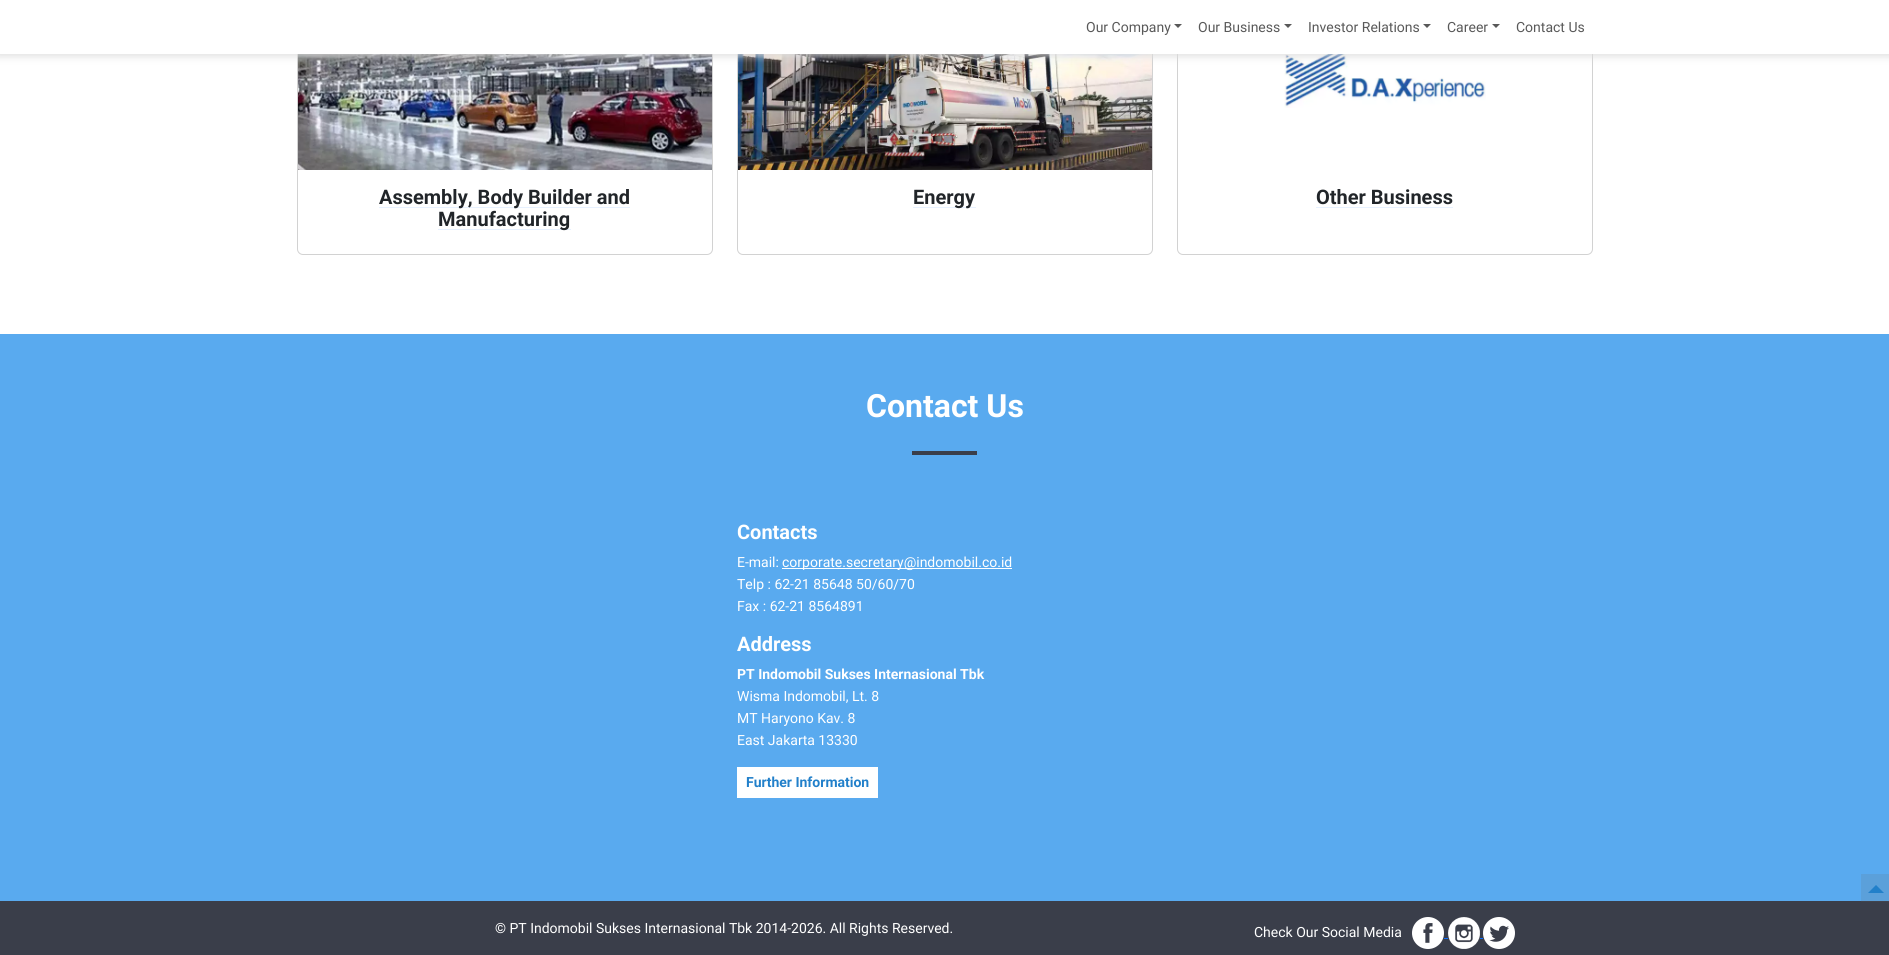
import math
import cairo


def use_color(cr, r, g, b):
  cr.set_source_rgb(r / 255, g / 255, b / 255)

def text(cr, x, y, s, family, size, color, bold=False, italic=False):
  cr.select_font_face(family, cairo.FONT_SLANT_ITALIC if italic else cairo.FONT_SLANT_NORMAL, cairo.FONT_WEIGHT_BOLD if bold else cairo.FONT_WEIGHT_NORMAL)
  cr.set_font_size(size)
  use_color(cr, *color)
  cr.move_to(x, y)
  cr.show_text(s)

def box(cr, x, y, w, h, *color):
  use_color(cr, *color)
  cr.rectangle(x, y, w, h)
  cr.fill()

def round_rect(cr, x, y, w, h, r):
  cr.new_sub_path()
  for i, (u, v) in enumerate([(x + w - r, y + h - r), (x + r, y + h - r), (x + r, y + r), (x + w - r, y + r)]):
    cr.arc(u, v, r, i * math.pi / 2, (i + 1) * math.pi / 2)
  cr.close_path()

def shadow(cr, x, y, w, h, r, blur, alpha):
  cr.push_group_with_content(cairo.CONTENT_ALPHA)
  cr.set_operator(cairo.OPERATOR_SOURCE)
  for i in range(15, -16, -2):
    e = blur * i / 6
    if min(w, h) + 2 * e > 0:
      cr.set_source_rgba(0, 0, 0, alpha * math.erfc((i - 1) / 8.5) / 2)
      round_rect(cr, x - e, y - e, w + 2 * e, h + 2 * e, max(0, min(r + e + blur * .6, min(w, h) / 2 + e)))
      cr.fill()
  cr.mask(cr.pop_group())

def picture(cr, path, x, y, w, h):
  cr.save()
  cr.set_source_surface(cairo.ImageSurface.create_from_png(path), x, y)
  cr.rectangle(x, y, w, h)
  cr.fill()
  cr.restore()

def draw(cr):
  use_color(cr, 255, 255, 255)
  cr.paint()
  round_rect(cr, 297.5, -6.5, 415, 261, 5.5)
  use_color(cr, 210, 210, 210)
  cr.set_line_width(1)
  cr.stroke()
  picture(cr, "img_01.png", 298, 54, 414, 116)
  round_rect(cr, 737.5, -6.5, 415, 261, 5.5)
  cr.stroke()
  picture(cr, "img_02.png", 738, 54, 414, 116)
  round_rect(cr, 1177.5, -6.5, 415, 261, 5.5)
  cr.stroke()
  picture(cr, "img_03.png", 1284, 54, 202, 54)
  use_color(cr, 221, 221, 221)
  shadow(cr, -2, -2, 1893, 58, 0, 4, 1)
  box(cr, 0, 0, 1889, 54, 255, 255, 255)
  use_color(cr, 89, 89, 89)
  cr.new_path()
  cr.move_to(1174, 24)
  cr.line_to(1182, 24)
  cr.line_to(1178, 28)
  cr.close_path()
  cr.fill()
  cr.new_path()
  cr.move_to(1284, 24)
  cr.line_to(1292, 24)
  cr.line_to(1288, 28)
  cr.close_path()
  cr.fill()
  cr.new_path()
  cr.move_to(1423, 24)
  cr.line_to(1431, 24)
  cr.line_to(1427, 28)
  cr.close_path()
  cr.fill()
  cr.new_path()
  cr.move_to(1492, 24)
  cr.line_to(1500, 24)
  cr.line_to(1496, 28)
  cr.close_path()
  cr.fill()
  box(cr, 379, 207, 251, 1, 231, 241, 255)
  box(cr, 438, 229, 133, 1, 231, 241, 255)
  box(cr, 913, 207, 63, 1, 231, 241, 255)
  box(cr, 1316, 207, 137, 1, 231, 241, 255)
  box(cr, 0, 334, 1889, 567, 89, 170, 239)
  box(cr, 1861, 874, 28, 27, 91, 160, 218)
  box(cr, 912, 451, 65, 4, 58, 62, 74)
  box(cr, 782, 568, 230, 1, 255, 255, 255)
  box(cr, 737, 767, 141, 31, 255, 255, 255)
  use_color(cr, 34, 128, 202)
  cr.new_path()
  cr.move_to(1884, 893)
  cr.line_to(1868, 893)
  cr.line_to(1876, 885)
  cr.close_path()
  cr.fill()
  box(cr, 0, 901, 1889, 54, 58, 62, 74)
  box(cr, 1861, 901, 28, 1, 65, 68, 78)
  picture(cr, "img_04.png", 1412, 917, 32, 32)
  picture(cr, "img_05.png", 1448, 917, 32, 32)
  picture(cr, "img_06.png", 1483, 917, 32, 32)
  box(cr, 1444, 938, 4, 1, 13, 110, 253)
  box(cr, 1480, 938, 3, 1, 13, 110, 253)
  text(cr, 1086, 32, "Our Company", "Roboto", 14, (89, 89, 89))
  text(cr, 1198, 32, "Our Business", "Roboto", 14, (89, 89, 89))
  text(cr, 1308, 32, "Investor Relations", "Roboto", 14, (89, 89, 89))
  text(cr, 1447, 32, "Career", "Roboto", 14, (89, 89, 89))
  text(cr, 1516, 32, "Contact Us", "Roboto", 14, (89, 89, 89))
  text(cr, 379, 204, "Assembly, Body Builder and", "Roboto", 20, (33, 37, 41), bold=True)
  text(cr, 438, 226, "Manufacturing", "Roboto", 20, (33, 37, 41), bold=True)
  text(cr, 913, 204, "Energy", "Roboto", 20, (33, 37, 41), bold=True)
  text(cr, 1316, 204, "Other Business", "Roboto", 20, (33, 37, 41), bold=True)
  text(cr, 866, 417, "Contact Us", "Roboto", 32, (255, 255, 255), bold=True)
  text(cr, 737, 539, "Contacts", "Roboto", 20, (255, 255, 255), bold=True)
  text(cr, 737, 567, "E-mail:", "Roboto", 14, (255, 255, 255))
  text(cr, 782, 567, "corporate.secretary@indomobil.co.id", "Roboto", 14, (255, 255, 255))
  text(cr, 737, 589, "Telp : 62-21 85648 50/60/70", "Roboto", 14, (255, 255, 255))
  text(cr, 737, 611, "Fax : 62-21 8564891", "Roboto", 14, (255, 255, 255))
  text(cr, 737, 651, "Address", "Roboto", 20, (255, 255, 255), bold=True)
  text(cr, 737, 679, "PT Indomobil Sukses Internasional Tbk", "Roboto", 14, (255, 255, 255), bold=True)
  text(cr, 737, 701, "Wisma Indomobil, Lt. 8", "Roboto", 14, (255, 255, 255))
  text(cr, 737, 723, "MT Haryono Kav. 8", "Roboto", 14, (255, 255, 255))
  text(cr, 737, 745, "East Jakarta 13330", "Roboto", 14, (255, 255, 255))
  text(cr, 746, 787, "Further Information", "Roboto", 14, (34, 128, 202), bold=True)
  text(cr, 495, 933, "© PT Indomobil Sukses Internasional Tbk 2014-2026. All Rights Reserved.", "Roboto", 14, (255, 255, 255))
  text(cr, 1254, 937, "Check Our Social Media", "Roboto", 14, (255, 255, 255))


surface = cairo.ImageSurface(cairo.FORMAT_RGB24, 1889, 955)
cr = cairo.Context(surface)
options = cairo.FontOptions()
options.set_hint_metrics(cairo.HINT_METRICS_OFF)
options.set_hint_style(cairo.HINT_STYLE_NONE)
cr.set_font_options(options)
cr.set_miter_limit(4)
draw(cr)
surface.write_to_png("out.png")
